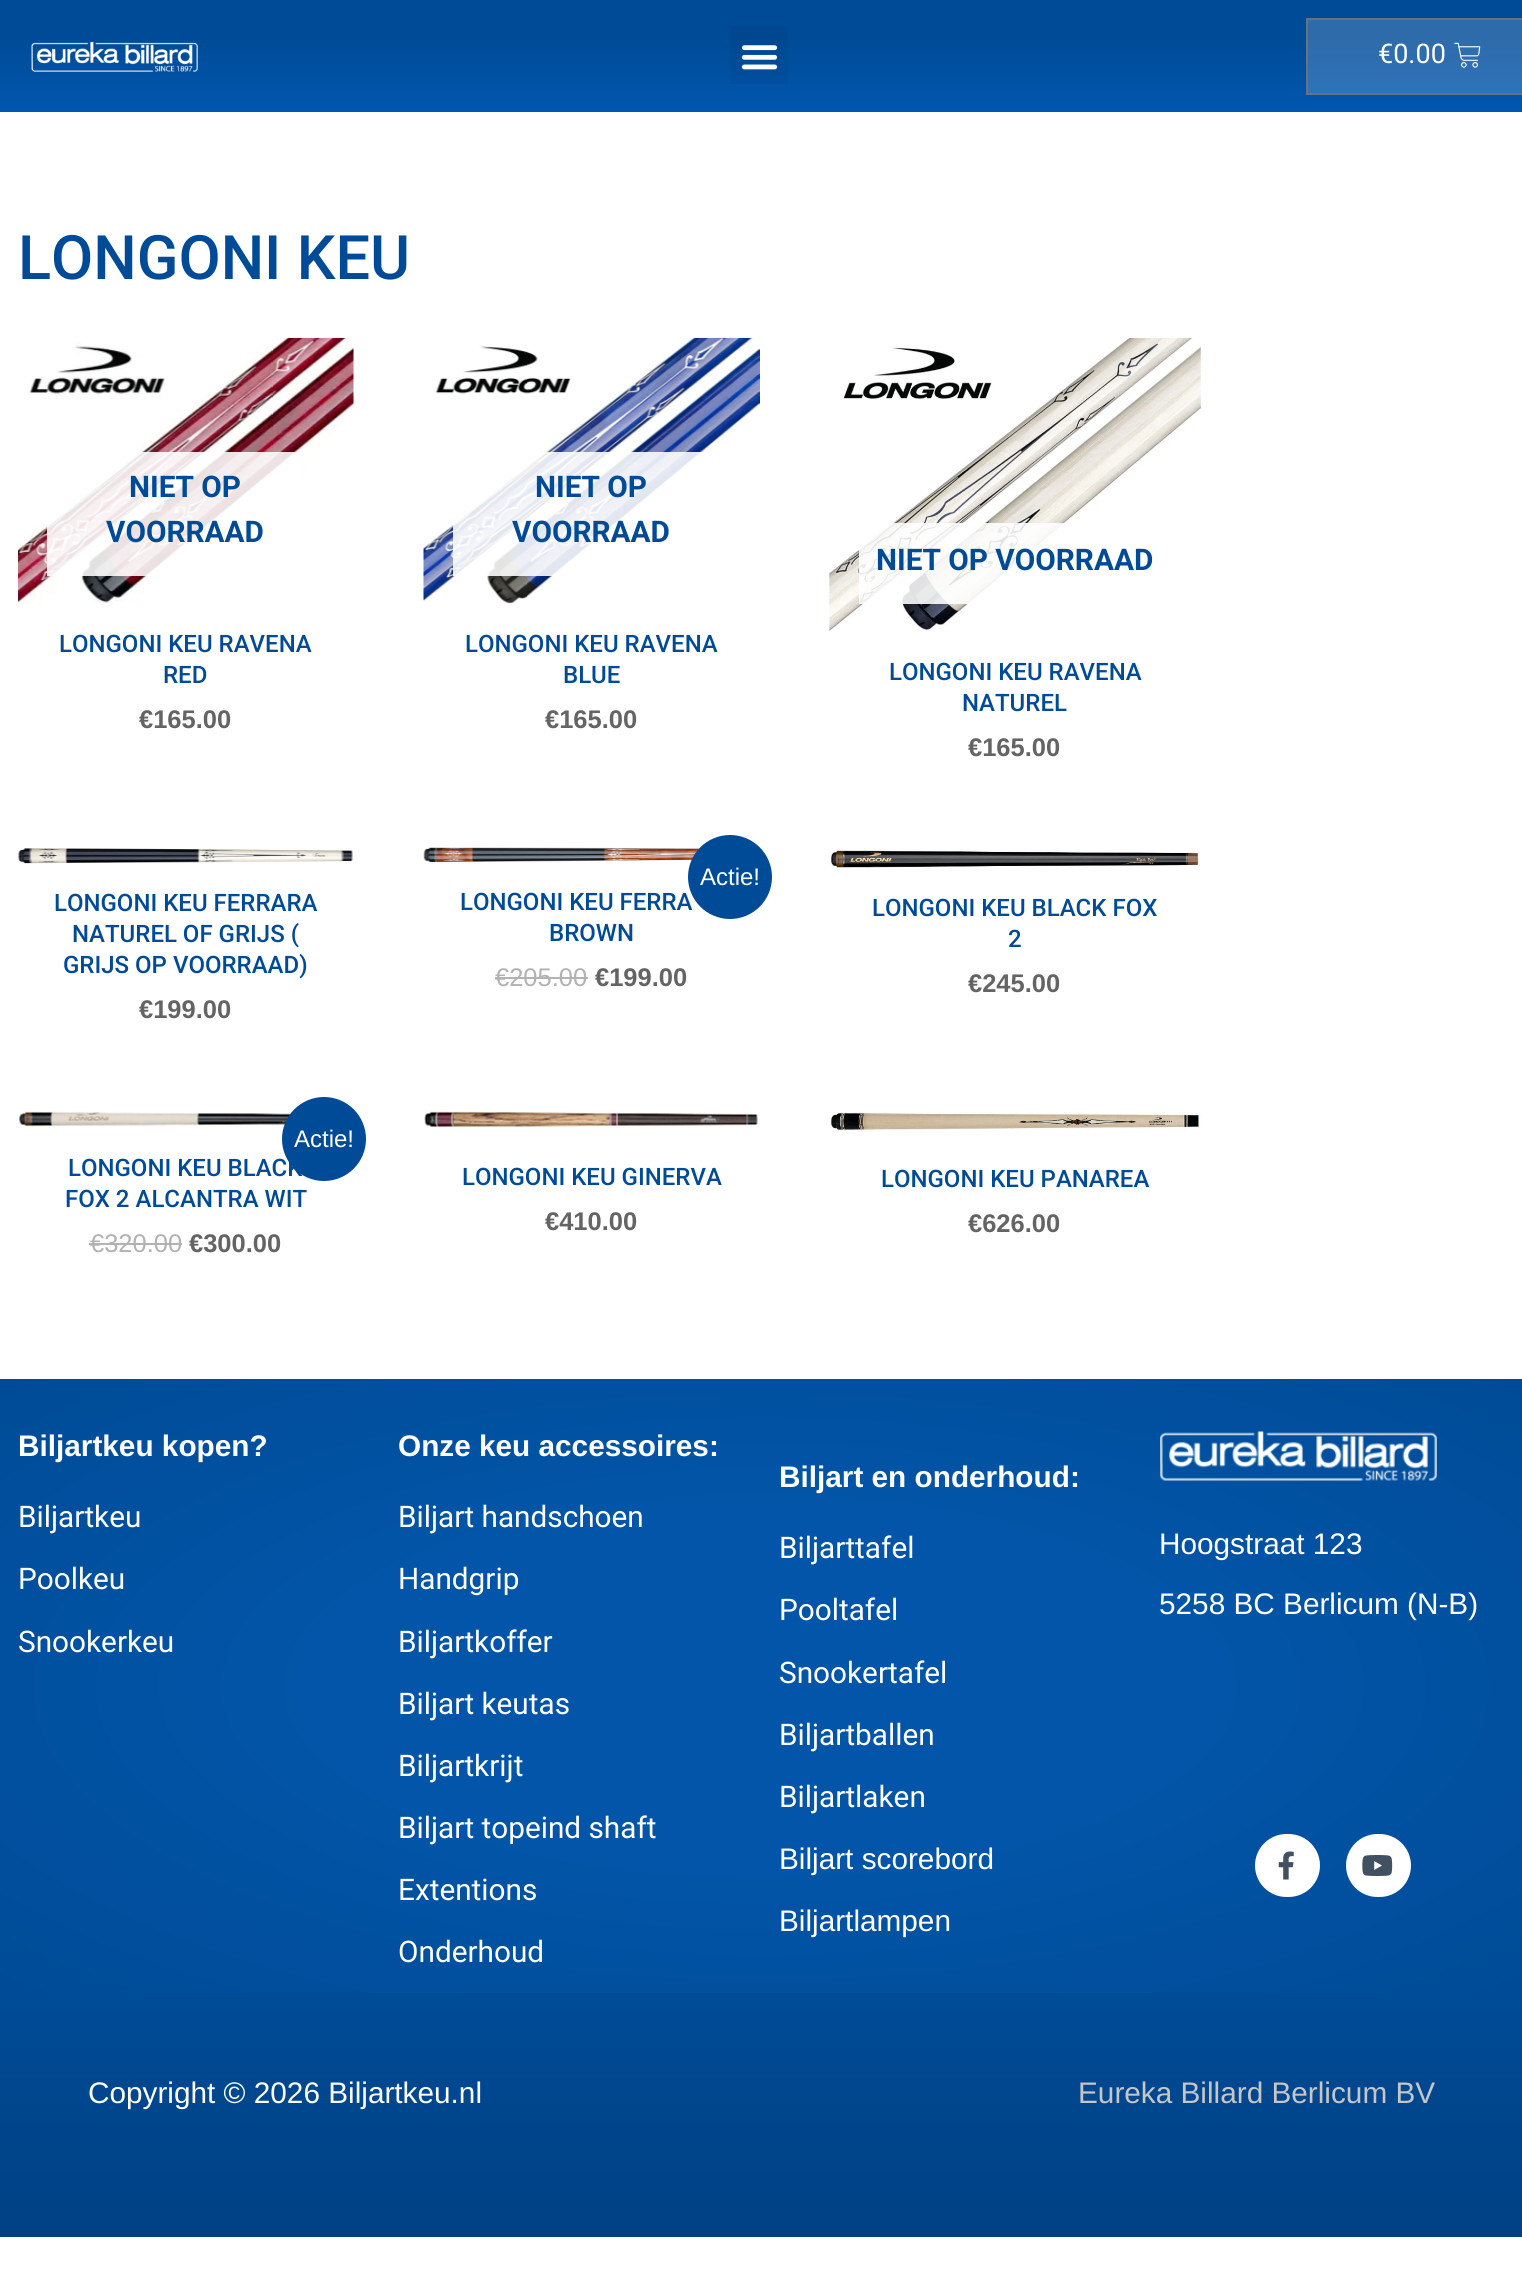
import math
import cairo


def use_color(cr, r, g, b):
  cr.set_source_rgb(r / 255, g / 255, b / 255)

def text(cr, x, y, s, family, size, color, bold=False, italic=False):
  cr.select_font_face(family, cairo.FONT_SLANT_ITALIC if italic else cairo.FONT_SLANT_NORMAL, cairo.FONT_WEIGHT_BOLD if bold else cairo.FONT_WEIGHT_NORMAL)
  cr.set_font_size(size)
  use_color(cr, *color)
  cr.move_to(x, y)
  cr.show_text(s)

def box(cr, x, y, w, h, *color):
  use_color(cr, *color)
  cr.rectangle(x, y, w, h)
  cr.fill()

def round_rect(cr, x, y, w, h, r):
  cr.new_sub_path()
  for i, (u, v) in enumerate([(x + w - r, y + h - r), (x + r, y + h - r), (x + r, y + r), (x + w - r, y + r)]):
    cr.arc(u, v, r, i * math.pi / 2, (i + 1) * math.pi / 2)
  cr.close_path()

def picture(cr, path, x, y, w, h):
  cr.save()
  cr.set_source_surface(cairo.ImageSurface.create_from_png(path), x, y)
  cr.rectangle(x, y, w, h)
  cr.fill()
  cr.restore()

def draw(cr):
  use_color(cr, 255, 255, 255)
  cr.paint()
  gradient = cairo.LinearGradient(761, 0, 761, 112)
  gradient.add_color_stop_rgba(0.33, 0, 0.294, 0.592, 1)
  gradient.add_color_stop_rgba(1, 0, 0.341, 0.69, 1)
  cr.set_source(gradient)
  cr.rectangle(0, 0, 1522, 112)
  cr.fill()
  gradient = cairo.LinearGradient(761, 0, 761, 112)
  gradient.add_color_stop_rgba(0.33, 0.18, 0.42, 0.667, 1)
  gradient.add_color_stop_rgba(1, 0.18, 0.459, 0.745, 1)
  cr.set_source(gradient)
  cr.rectangle(1308, 20, 214, 73)
  cr.fill()
  picture(cr, "img_01.png", 31, 42, 167, 30)
  cr.set_source_rgba(0, 0, 0, 0.05)
  cr.rectangle(730, 26, 58, 58)
  cr.fill()
  picture(cr, "img_02.png", 741, 45, 37, 25)
  cr.rectangle(1307, 19, 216, 75)
  use_color(cr, 105, 114, 125)
  cr.stroke()
  picture(cr, "img_03.png", 1454, 42, 27, 26)
  picture(cr, "img_04.png", 18, 337, 336, 268)
  cr.set_source_rgba(1, 1, 1, 0.88)
  cr.rectangle(47, 452, 255, 124)
  cr.fill()
  picture(cr, "img_05.png", 423, 337, 337, 267)
  cr.rectangle(453, 452, 254, 124)
  cr.fill()
  picture(cr, "img_06.png", 829, 338, 372, 293)
  cr.rectangle(859, 523, 208, 81)
  cr.fill()
  picture(cr, "img_07.png", 18, 848, 335, 16)
  picture(cr, "img_08.png", 423, 847, 277, 16)
  use_color(cr, 0, 75, 151)
  cr.arc(730, 877, 42, 0, 2 * math.pi)
  cr.fill()
  box(cr, 495, 977, 93, 2, 178, 178, 178)
  picture(cr, "img_09.png", 830, 850, 371, 18)
  picture(cr, "img_10.png", 18, 1111, 275, 16)
  use_color(cr, 0, 75, 151)
  cr.arc(324, 1139, 42, 0, 2 * math.pi)
  cr.fill()
  box(cr, 89, 1243, 93, 2, 178, 178, 178)
  picture(cr, "img_11.png", 424, 1111, 334, 17)
  picture(cr, "img_12.png", 830, 1112, 371, 20)
  gradient = cairo.RadialGradient(0, 0, 0, 0, 0, 1)
  gradient.set_matrix(cairo.Matrix(1 / 1077, 0, 0, 1 / 434, -1 * 761 / 1077, -1 * 1686 / 434))
  gradient.add_color_stop_rgba(0.42, 0.008, 0.333, 0.659, 1)
  gradient.add_color_stop_rgba(1, 0, 0.294, 0.592, 1)
  cr.set_source(gradient)
  cr.rectangle(0, 1379, 1522, 614)
  cr.fill()
  picture(cr, "img_13.png", 1160, 1431, 277, 50)
  use_color(cr, 255, 255, 255)
  round_rect(cr, 1255, 1834, 65, 63, 31.5)
  cr.fill()
  picture(cr, "img_14.png", 1278, 1851, 16, 29)
  round_rect(cr, 1346, 1834, 65, 63, 31.5)
  cr.fill()
  picture(cr, "img_15.png", 1362, 1855, 31, 21)
  gradient = cairo.LinearGradient(761, 1993, 761, 2237)
  gradient.add_color_stop_rgba(0, 0, 0.294, 0.592, 1)
  gradient.add_color_stop_rgba(1, 0, 0.255, 0.514, 1)
  cr.set_source(gradient)
  cr.rectangle(0, 1993, 1522, 244)
  cr.fill()
  text(cr, 1378, 63, "€0.00", "Roboto", 27, (255, 255, 255))
  text(cr, 18, 279, "LONGONI KEU", "Roboto Medium", 61.25, (0, 75, 151))
  text(cr, 129, 497, "NIET OP", "Roboto", 29.75, (0, 75, 151), bold=True)
  text(cr, 106, 542, "VOORRAAD", "Roboto", 29.75, (0, 75, 151), bold=True)
  text(cr, 59, 652, "LONGONI KEU RAVENA", "Roboto Medium", 24, (0, 75, 151))
  text(cr, 163, 683, "RED", "Roboto Medium", 24, (0, 75, 151))
  text(cr, 139, 728, "€165.00", "Liberation Sans", 25.5, (100, 100, 100), bold=True)
  text(cr, 535, 497, "NIET OP", "Roboto", 29.75, (0, 75, 151), bold=True)
  text(cr, 512, 542, "VOORRAAD", "Roboto", 29.75, (0, 75, 151), bold=True)
  text(cr, 465, 652, "LONGONI KEU RAVENA", "Roboto Medium", 24, (0, 75, 151))
  text(cr, 563, 683, "BLUE", "Roboto Medium", 24, (0, 75, 151))
  text(cr, 545, 728, "€165.00", "Liberation Sans", 25.5, (100, 100, 100), bold=True)
  text(cr, 876, 570, "NIET OP VOORRAAD", "Roboto", 29.75, (0, 75, 151), bold=True)
  text(cr, 889, 680, "LONGONI KEU RAVENA", "Roboto Medium", 24, (0, 75, 151))
  text(cr, 962, 711, "NATUREL", "Roboto Medium", 24, (0, 75, 151))
  text(cr, 968, 756, "€165.00", "Liberation Sans", 25.5, (100, 100, 100), bold=True)
  text(cr, 54, 911, "LONGONI KEU FERRARA", "Roboto Medium", 24, (0, 75, 151))
  text(cr, 72, 942, "NATUREL OF GRIJS (", "Roboto Medium", 24, (0, 75, 151))
  text(cr, 63, 973, "GRIJS OP VOORRAAD)", "Roboto Medium", 24, (0, 75, 151))
  text(cr, 139, 1018, "€199.00", "Liberation Sans", 25.5, (100, 100, 100), bold=True)
  text(cr, 700, 885, "Actie!", "Liberation Sans", 24, (255, 255, 255))
  text(cr, 460, 910, "LONGONI KEU FERRA", "Roboto Medium", 24, (0, 75, 151))
  text(cr, 549, 941, "BROWN", "Roboto Medium", 24, (0, 75, 151))
  text(cr, 495, 986, "€205.00", "Liberation Sans", 25.5, (178, 178, 178))
  text(cr, 595, 986, "€199.00", "Liberation Sans", 25.5, (100, 100, 100), bold=True)
  text(cr, 872, 916, "LONGONI KEU BLACK FOX", "Roboto Medium", 24, (0, 75, 151))
  text(cr, 1008, 947, "2", "Roboto Medium", 24, (0, 75, 151))
  text(cr, 968, 992, "€245.00", "Liberation Sans", 25.5, (100, 100, 100), bold=True)
  text(cr, 294, 1147, "Actie!", "Liberation Sans", 24, (255, 255, 255))
  text(cr, 68, 1176, "LONGONI KEU BLACK", "Roboto Medium", 24, (0, 75, 151))
  text(cr, 65, 1207, "FOX 2 ALCANTRA WIT", "Roboto Medium", 24, (0, 75, 151))
  text(cr, 90, 1252, "€320.00", "Liberation Sans", 25.5, (178, 178, 178))
  text(cr, 189, 1252, "€300.00", "Liberation Sans", 25.5, (100, 100, 100), bold=True)
  text(cr, 462, 1185, "LONGONI KEU GINERVA", "Roboto Medium", 24, (0, 75, 151))
  text(cr, 545, 1230, "€410.00", "Liberation Sans", 25.5, (100, 100, 100), bold=True)
  text(cr, 881, 1187, "LONGONI KEU PANAREA", "Roboto Medium", 24, (0, 75, 151))
  text(cr, 968, 1232, "€626.00", "Liberation Sans", 25.5, (100, 100, 100), bold=True)
  text(cr, 18, 1456, "Biljartkeu kopen?", "Liberation Sans", 29.75, (255, 255, 255), bold=True)
  text(cr, 18, 1527, "Biljartkeu", "Roboto", 29.75, (255, 255, 255))
  text(cr, 18, 1589, "Poolkeu", "Roboto", 29.75, (255, 255, 255))
  text(cr, 18, 1652, "Snookerkeu", "Roboto", 29.75, (255, 255, 255))
  text(cr, 398, 1456, "Onze keu accessoires:", "Liberation Sans", 29.75, (255, 255, 255), bold=True)
  text(cr, 398, 1527, "Biljart handschoen", "Roboto", 29.75, (255, 255, 255))
  text(cr, 398, 1589, "Handgrip", "Roboto", 29.75, (255, 255, 255))
  text(cr, 398, 1652, "Biljartkoffer", "Roboto", 29.75, (255, 255, 255))
  text(cr, 398, 1714, "Biljart keutas", "Roboto", 29.75, (255, 255, 255))
  text(cr, 398, 1776, "Biljartkrijt", "Roboto", 29.75, (255, 255, 255))
  text(cr, 398, 1838, "Biljart topeind shaft", "Roboto", 29.75, (255, 255, 255))
  text(cr, 398, 1900, "Extentions", "Roboto", 29.75, (255, 255, 255))
  text(cr, 398, 1962, "Onderhoud", "Roboto", 29.75, (255, 255, 255))
  text(cr, 779, 1487, "Biljart en onderhoud:", "Liberation Sans", 29.75, (255, 255, 255), bold=True)
  text(cr, 779, 1558, "Biljarttafel", "Roboto", 29.75, (255, 255, 255))
  text(cr, 779, 1620, "Pooltafel", "Roboto", 29.75, (255, 255, 255))
  text(cr, 779, 1683, "Snookertafel", "Roboto", 29.75, (255, 255, 255))
  text(cr, 779, 1745, "Biljartballen", "Roboto", 29.75, (255, 255, 255))
  text(cr, 779, 1807, "Biljartlaken", "Roboto", 29.75, (255, 255, 255))
  text(cr, 779, 1869, "Biljart scorebord", "Liberation Sans", 29.75, (255, 255, 255))
  text(cr, 779, 1931, "Biljartlampen", "Liberation Sans", 29.75, (255, 255, 255))
  text(cr, 1159, 1554, "Hoogstraat 123", "Liberation Sans", 29.75, (255, 255, 255))
  text(cr, 1159, 1614, "5258 BC Berlicum (N-B)", "Liberation Sans", 29.75, (255, 255, 255))
  text(cr, 88, 2103, "Copyright © 2026 Biljartkeu.nl", "Liberation Sans", 29.75, (255, 255, 255))
  text(cr, 1078, 2103, "Eureka Billard Berlicum BV", "Liberation Sans", 29.75, (198, 198, 198))


surface = cairo.ImageSurface(cairo.FORMAT_RGB24, 1522, 2272)
cr = cairo.Context(surface)
options = cairo.FontOptions()
options.set_hint_metrics(cairo.HINT_METRICS_OFF)
options.set_hint_style(cairo.HINT_STYLE_NONE)
cr.set_font_options(options)
cr.set_miter_limit(4)
draw(cr)
surface.write_to_png("out.png")
